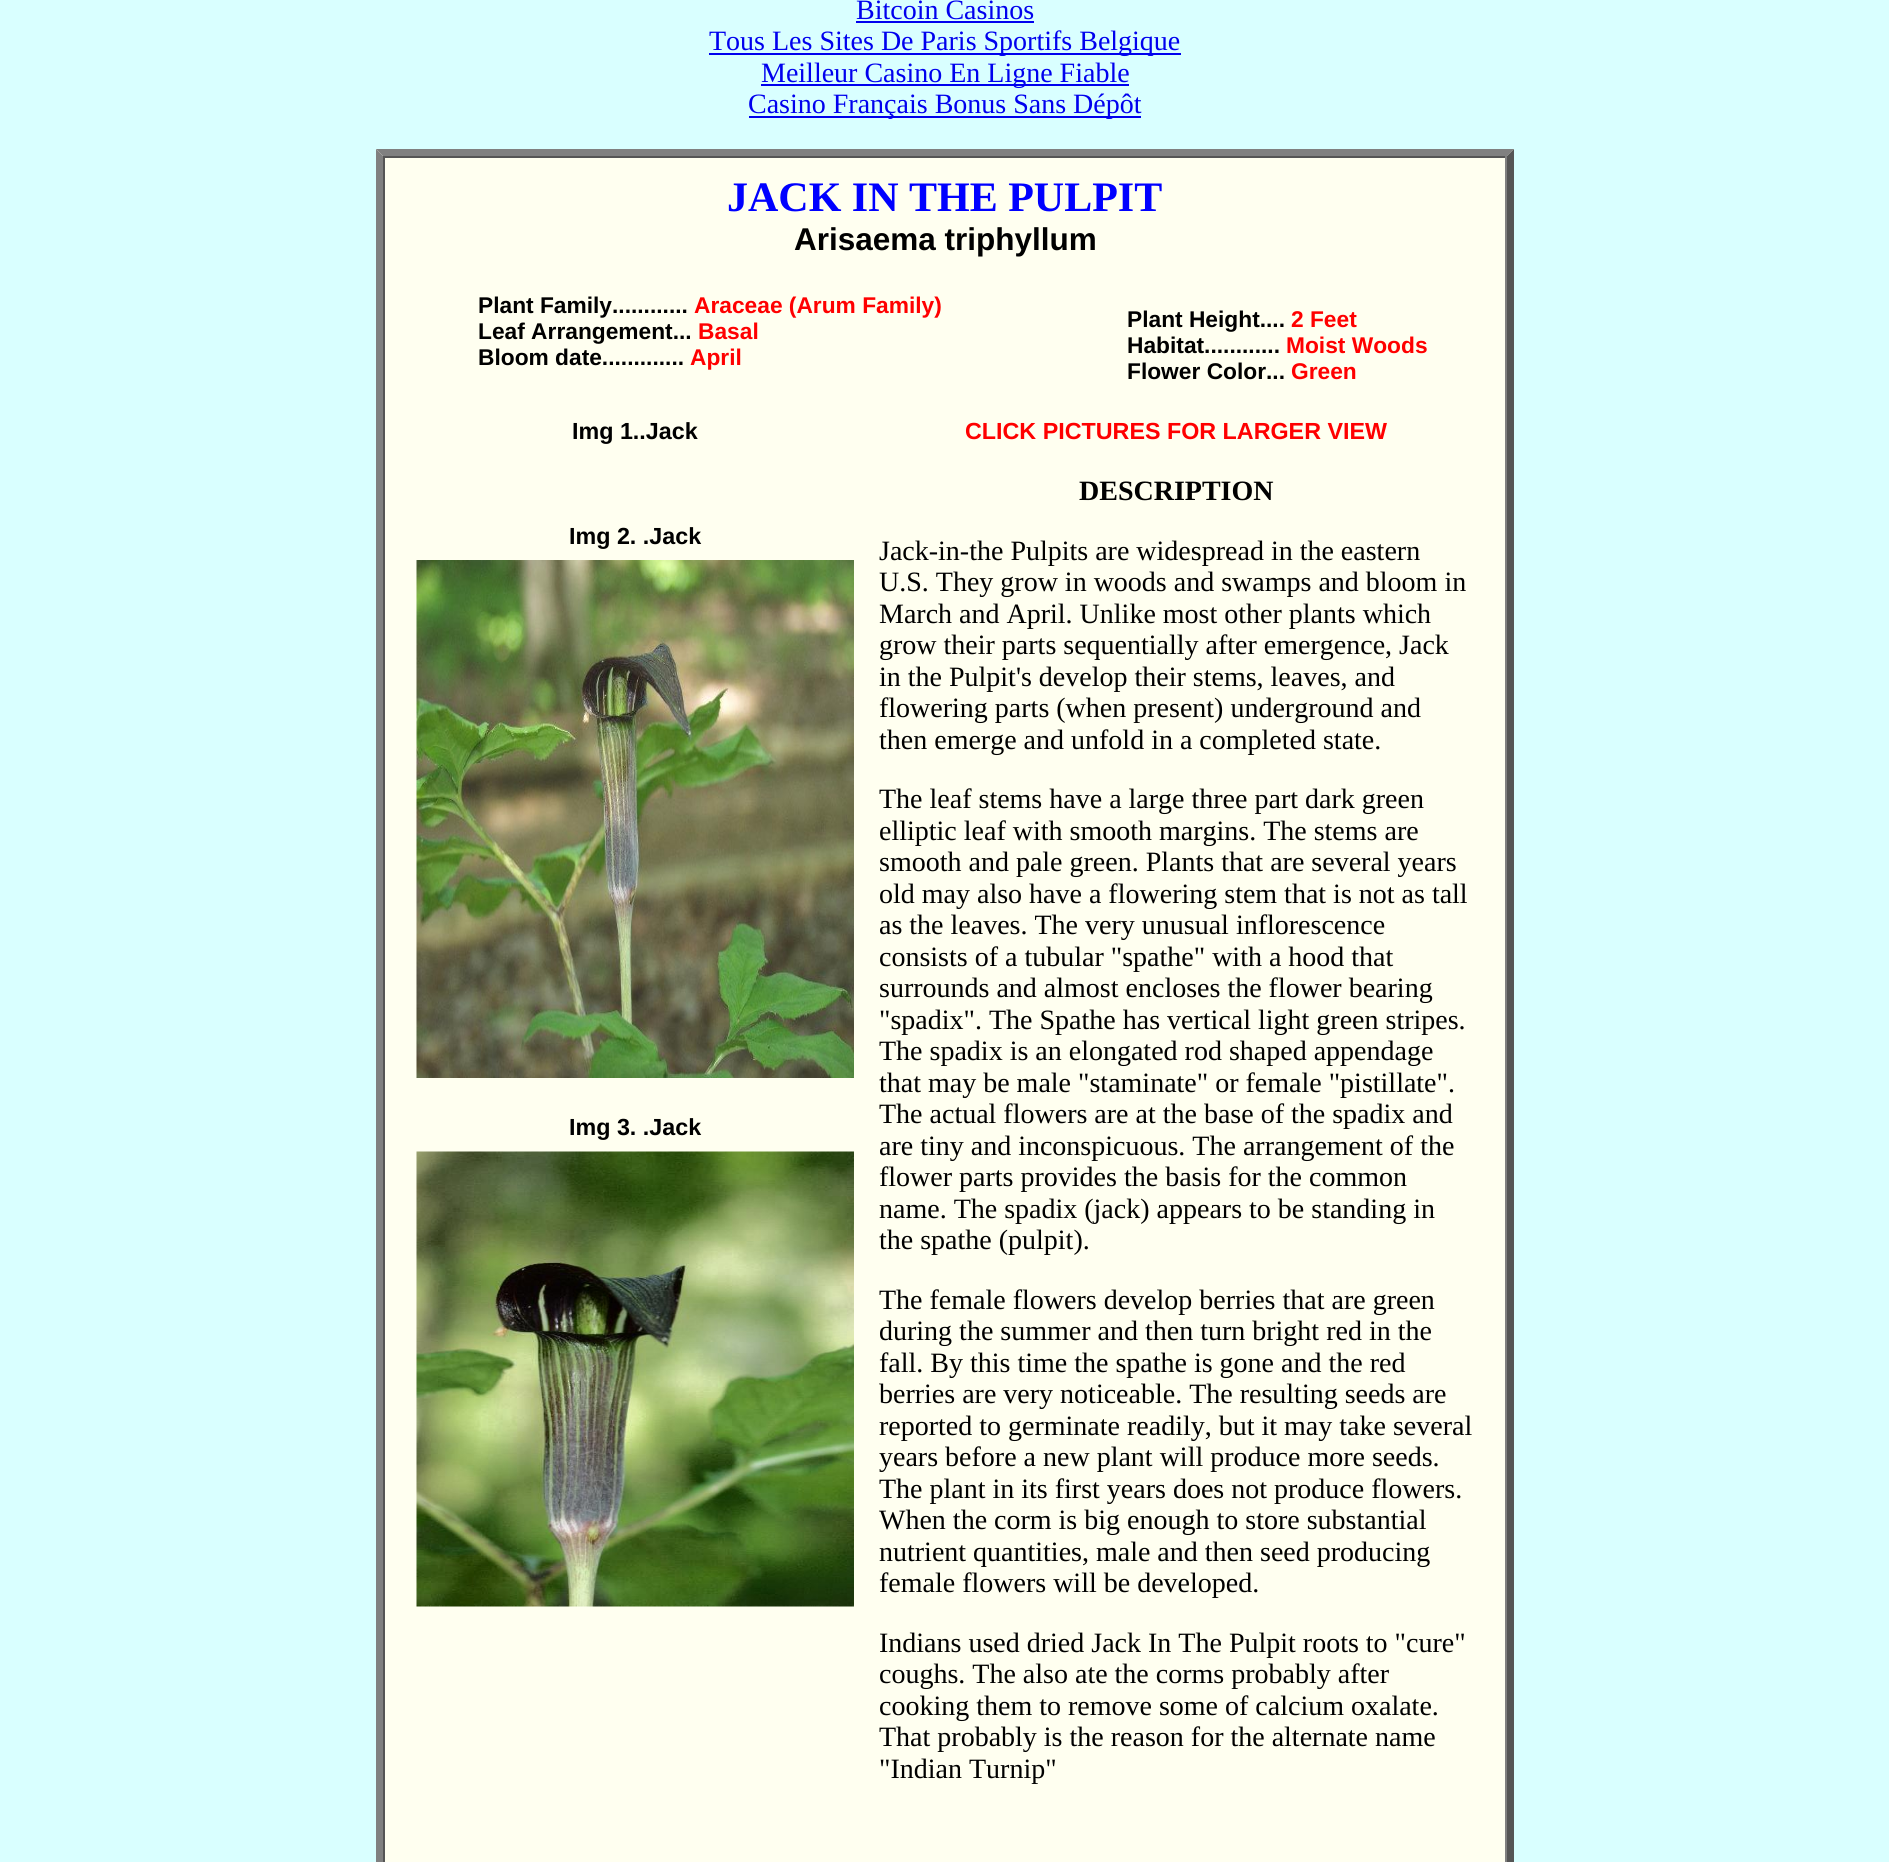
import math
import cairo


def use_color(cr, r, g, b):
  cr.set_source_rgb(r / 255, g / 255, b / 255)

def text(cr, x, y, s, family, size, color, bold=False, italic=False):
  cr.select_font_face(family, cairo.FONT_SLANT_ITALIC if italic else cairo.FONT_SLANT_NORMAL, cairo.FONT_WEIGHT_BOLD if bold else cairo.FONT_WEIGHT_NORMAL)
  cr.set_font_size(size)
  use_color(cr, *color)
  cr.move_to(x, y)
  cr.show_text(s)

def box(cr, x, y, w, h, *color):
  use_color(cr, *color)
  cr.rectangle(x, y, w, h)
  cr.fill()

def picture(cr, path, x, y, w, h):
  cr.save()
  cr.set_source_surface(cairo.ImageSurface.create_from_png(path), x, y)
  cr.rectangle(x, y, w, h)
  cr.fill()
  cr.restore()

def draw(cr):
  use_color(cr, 217, 255, 255)
  cr.paint()
  box(cr, 856, 21, 178, 2, 0, 0, 238)
  box(cr, 709, 53, 472, 2, 0, 0, 238)
  box(cr, 761, 84, 368, 2, 0, 0, 238)
  box(cr, 749, 116, 392, 2, 0, 0, 238)
  box(cr, 376, 149, 1138, 1713, 255, 255, 240)
  use_color(cr, 128, 128, 128)
  cr.new_path()
  cr.move_to(376, 149)
  cr.line_to(1514, 149)
  cr.line_to(1507, 156)
  cr.line_to(383, 156)
  cr.close_path()
  cr.fill()
  use_color(cr, 85, 85, 85)
  cr.new_path()
  cr.move_to(1514, 149)
  cr.line_to(1514, 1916)
  cr.line_to(1507, 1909)
  cr.line_to(1507, 156)
  cr.close_path()
  cr.fill()
  use_color(cr, 128, 128, 128)
  cr.new_path()
  cr.move_to(376, 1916)
  cr.line_to(376, 149)
  cr.line_to(383, 156)
  cr.line_to(383, 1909)
  cr.close_path()
  cr.fill()
  box(cr, 383, 156, 1124, 2, 85, 85, 85)
  box(cr, 1505, 156, 2, 1706, 128, 128, 128)
  box(cr, 383, 156, 2, 1706, 85, 85, 85)
  picture(cr, "img_01.png", 416, 560, 438, 518)
  picture(cr, "img_02.png", 416, 1151, 438, 456)
  text(cr, 856, 19, "Bitcoin Casinos", "Liberation Serif", 28, (0, 0, 238))
  text(cr, 709, 50, "Tous Les Sites De Paris Sportifs Belgique", "Liberation Serif", 28, (0, 0, 238))
  text(cr, 761, 82, "Meilleur Casino En Ligne Fiable", "Liberation Serif", 28, (0, 0, 238))
  text(cr, 748, 113, "Casino Français Bonus Sans Dépôt", "Liberation Serif", 28, (0, 0, 238))
  text(cr, 727, 211, "JACK IN THE PULPIT", "Liberation Serif", 42, (0, 0, 255), bold=True)
  text(cr, 794, 250, "Arisaema triphyllum", "Liberation Sans", 31.5, (0, 0, 0), bold=True)
  text(cr, 478, 313, "Plant Family............", "Liberation Sans", 22.75, (0, 0, 0), bold=True)
  text(cr, 694, 313, "Araceae (Arum Family)", "Liberation Sans", 22.75, (255, 0, 0), bold=True)
  text(cr, 478, 339, "Leaf Arrangement...", "Liberation Sans", 22.75, (0, 0, 0), bold=True)
  text(cr, 698, 339, "Basal", "Liberation Sans", 22.75, (255, 0, 0), bold=True)
  text(cr, 478, 365, "Bloom date.............", "Liberation Sans", 22.75, (0, 0, 0), bold=True)
  text(cr, 690, 365, "April", "Liberation Sans", 22.75, (255, 0, 0), bold=True)
  text(cr, 1127, 327, "Plant Height....", "Liberation Sans", 22.75, (0, 0, 0), bold=True)
  text(cr, 1291, 327, "2 Feet", "Liberation Sans", 22.75, (255, 0, 0), bold=True)
  text(cr, 1127, 353, "Habitat............", "Liberation Sans", 22.75, (0, 0, 0), bold=True)
  text(cr, 1286, 353, "Moist Woods", "Liberation Sans", 22.75, (255, 0, 0), bold=True)
  text(cr, 1127, 379, "Flower Color...", "Liberation Sans", 22.75, (0, 0, 0), bold=True)
  text(cr, 1291, 379, "Green", "Liberation Sans", 22.75, (255, 0, 0), bold=True)
  text(cr, 572, 439, "Img 1..Jack", "Liberation Sans", 23.3, (0, 0, 0), bold=True)
  text(cr, 569, 544, "Img 2. .Jack", "Liberation Sans", 23.3, (0, 0, 0), bold=True)
  text(cr, 569, 1135, "Img 3. .Jack", "Liberation Sans", 23.3, (0, 0, 0), bold=True)
  text(cr, 965, 439, "CLICK PICTURES FOR LARGER VIEW", "Liberation Sans", 23.3, (255, 0, 0), bold=True)
  text(cr, 1079, 500, "DESCRIPTION", "Liberation Serif", 28, (0, 0, 0), bold=True)
  text(cr, 879, 560, "Jack-in-the Pulpits are widespread in the eastern", "Liberation Serif", 28, (0, 0, 0))
  text(cr, 879, 591, "U.S. They grow in woods and swamps and bloom in", "Liberation Serif", 28, (0, 0, 0))
  text(cr, 879, 623, "March and April. Unlike most other plants which", "Liberation Serif", 28, (0, 0, 0))
  text(cr, 879, 654, "grow their parts sequentially after emergence, Jack", "Liberation Serif", 28, (0, 0, 0))
  text(cr, 879, 686, "in the Pulpit's develop their stems, leaves, and", "Liberation Serif", 28, (0, 0, 0))
  text(cr, 879, 717, "flowering parts (when present) underground and", "Liberation Serif", 28, (0, 0, 0))
  text(cr, 879, 749, "then emerge and unfold in a completed state.", "Liberation Serif", 28, (0, 0, 0))
  text(cr, 879, 808, "The leaf stems have a large three part dark green", "Liberation Serif", 28, (0, 0, 0))
  text(cr, 879, 840, "elliptic leaf with smooth margins. The stems are", "Liberation Serif", 28, (0, 0, 0))
  text(cr, 879, 871, "smooth and pale green. Plants that are several years", "Liberation Serif", 28, (0, 0, 0))
  text(cr, 879, 903, "old may also have a flowering stem that is not as tall", "Liberation Serif", 28, (0, 0, 0))
  text(cr, 879, 934, "as the leaves. The very unusual inflorescence", "Liberation Serif", 28, (0, 0, 0))
  text(cr, 879, 966, "consists of a tubular \"spathe\" with a hood that", "Liberation Serif", 28, (0, 0, 0))
  text(cr, 879, 997, "surrounds and almost encloses the flower bearing", "Liberation Serif", 28, (0, 0, 0))
  text(cr, 879, 1029, "\"spadix\". The Spathe has vertical light green stripes.", "Liberation Serif", 28, (0, 0, 0))
  text(cr, 879, 1060, "The spadix is an elongated rod shaped appendage", "Liberation Serif", 28, (0, 0, 0))
  text(cr, 879, 1092, "that may be male \"staminate\" or female \"pistillate\".", "Liberation Serif", 28, (0, 0, 0))
  text(cr, 879, 1123, "The actual flowers are at the base of the spadix and", "Liberation Serif", 28, (0, 0, 0))
  text(cr, 879, 1155, "are tiny and inconspicuous. The arrangement of the", "Liberation Serif", 28, (0, 0, 0))
  text(cr, 879, 1186, "flower parts provides the basis for the common", "Liberation Serif", 28, (0, 0, 0))
  text(cr, 879, 1218, "name. The spadix (jack) appears to be standing in", "Liberation Serif", 28, (0, 0, 0))
  text(cr, 879, 1249, "the spathe (pulpit).", "Liberation Serif", 28, (0, 0, 0))
  text(cr, 879, 1309, "The female flowers develop berries that are green", "Liberation Serif", 28, (0, 0, 0))
  text(cr, 879, 1340, "during the summer and then turn bright red in the", "Liberation Serif", 28, (0, 0, 0))
  text(cr, 879, 1372, "fall. By this time the spathe is gone and the red", "Liberation Serif", 28, (0, 0, 0))
  text(cr, 879, 1403, "berries are very noticeable. The resulting seeds are", "Liberation Serif", 28, (0, 0, 0))
  text(cr, 879, 1435, "reported to germinate readily, but it may take several", "Liberation Serif", 28, (0, 0, 0))
  text(cr, 879, 1466, "years before a new plant will produce more seeds.", "Liberation Serif", 28, (0, 0, 0))
  text(cr, 879, 1498, "The plant in its first years does not produce flowers.", "Liberation Serif", 28, (0, 0, 0))
  text(cr, 879, 1529, "When the corm is big enough to store substantial", "Liberation Serif", 28, (0, 0, 0))
  text(cr, 879, 1561, "nutrient quantities, male and then seed producing", "Liberation Serif", 28, (0, 0, 0))
  text(cr, 879, 1592, "female flowers will be developed.", "Liberation Serif", 28, (0, 0, 0))
  text(cr, 879, 1652, "Indians used dried Jack In The Pulpit roots to \"cure\"", "Liberation Serif", 28, (0, 0, 0))
  text(cr, 879, 1683, "coughs. The also ate the corms probably after", "Liberation Serif", 28, (0, 0, 0))
  text(cr, 879, 1715, "cooking them to remove some of calcium oxalate.", "Liberation Serif", 28, (0, 0, 0))
  text(cr, 879, 1746, "That probably is the reason for the alternate name", "Liberation Serif", 28, (0, 0, 0))
  text(cr, 879, 1778, "\"Indian Turnip\"", "Liberation Serif", 28, (0, 0, 0))


surface = cairo.ImageSurface(cairo.FORMAT_RGB24, 1889, 1862)
cr = cairo.Context(surface)
options = cairo.FontOptions()
options.set_hint_metrics(cairo.HINT_METRICS_OFF)
options.set_hint_style(cairo.HINT_STYLE_NONE)
cr.set_font_options(options)
cr.set_miter_limit(4)
draw(cr)
surface.write_to_png("out.png")
